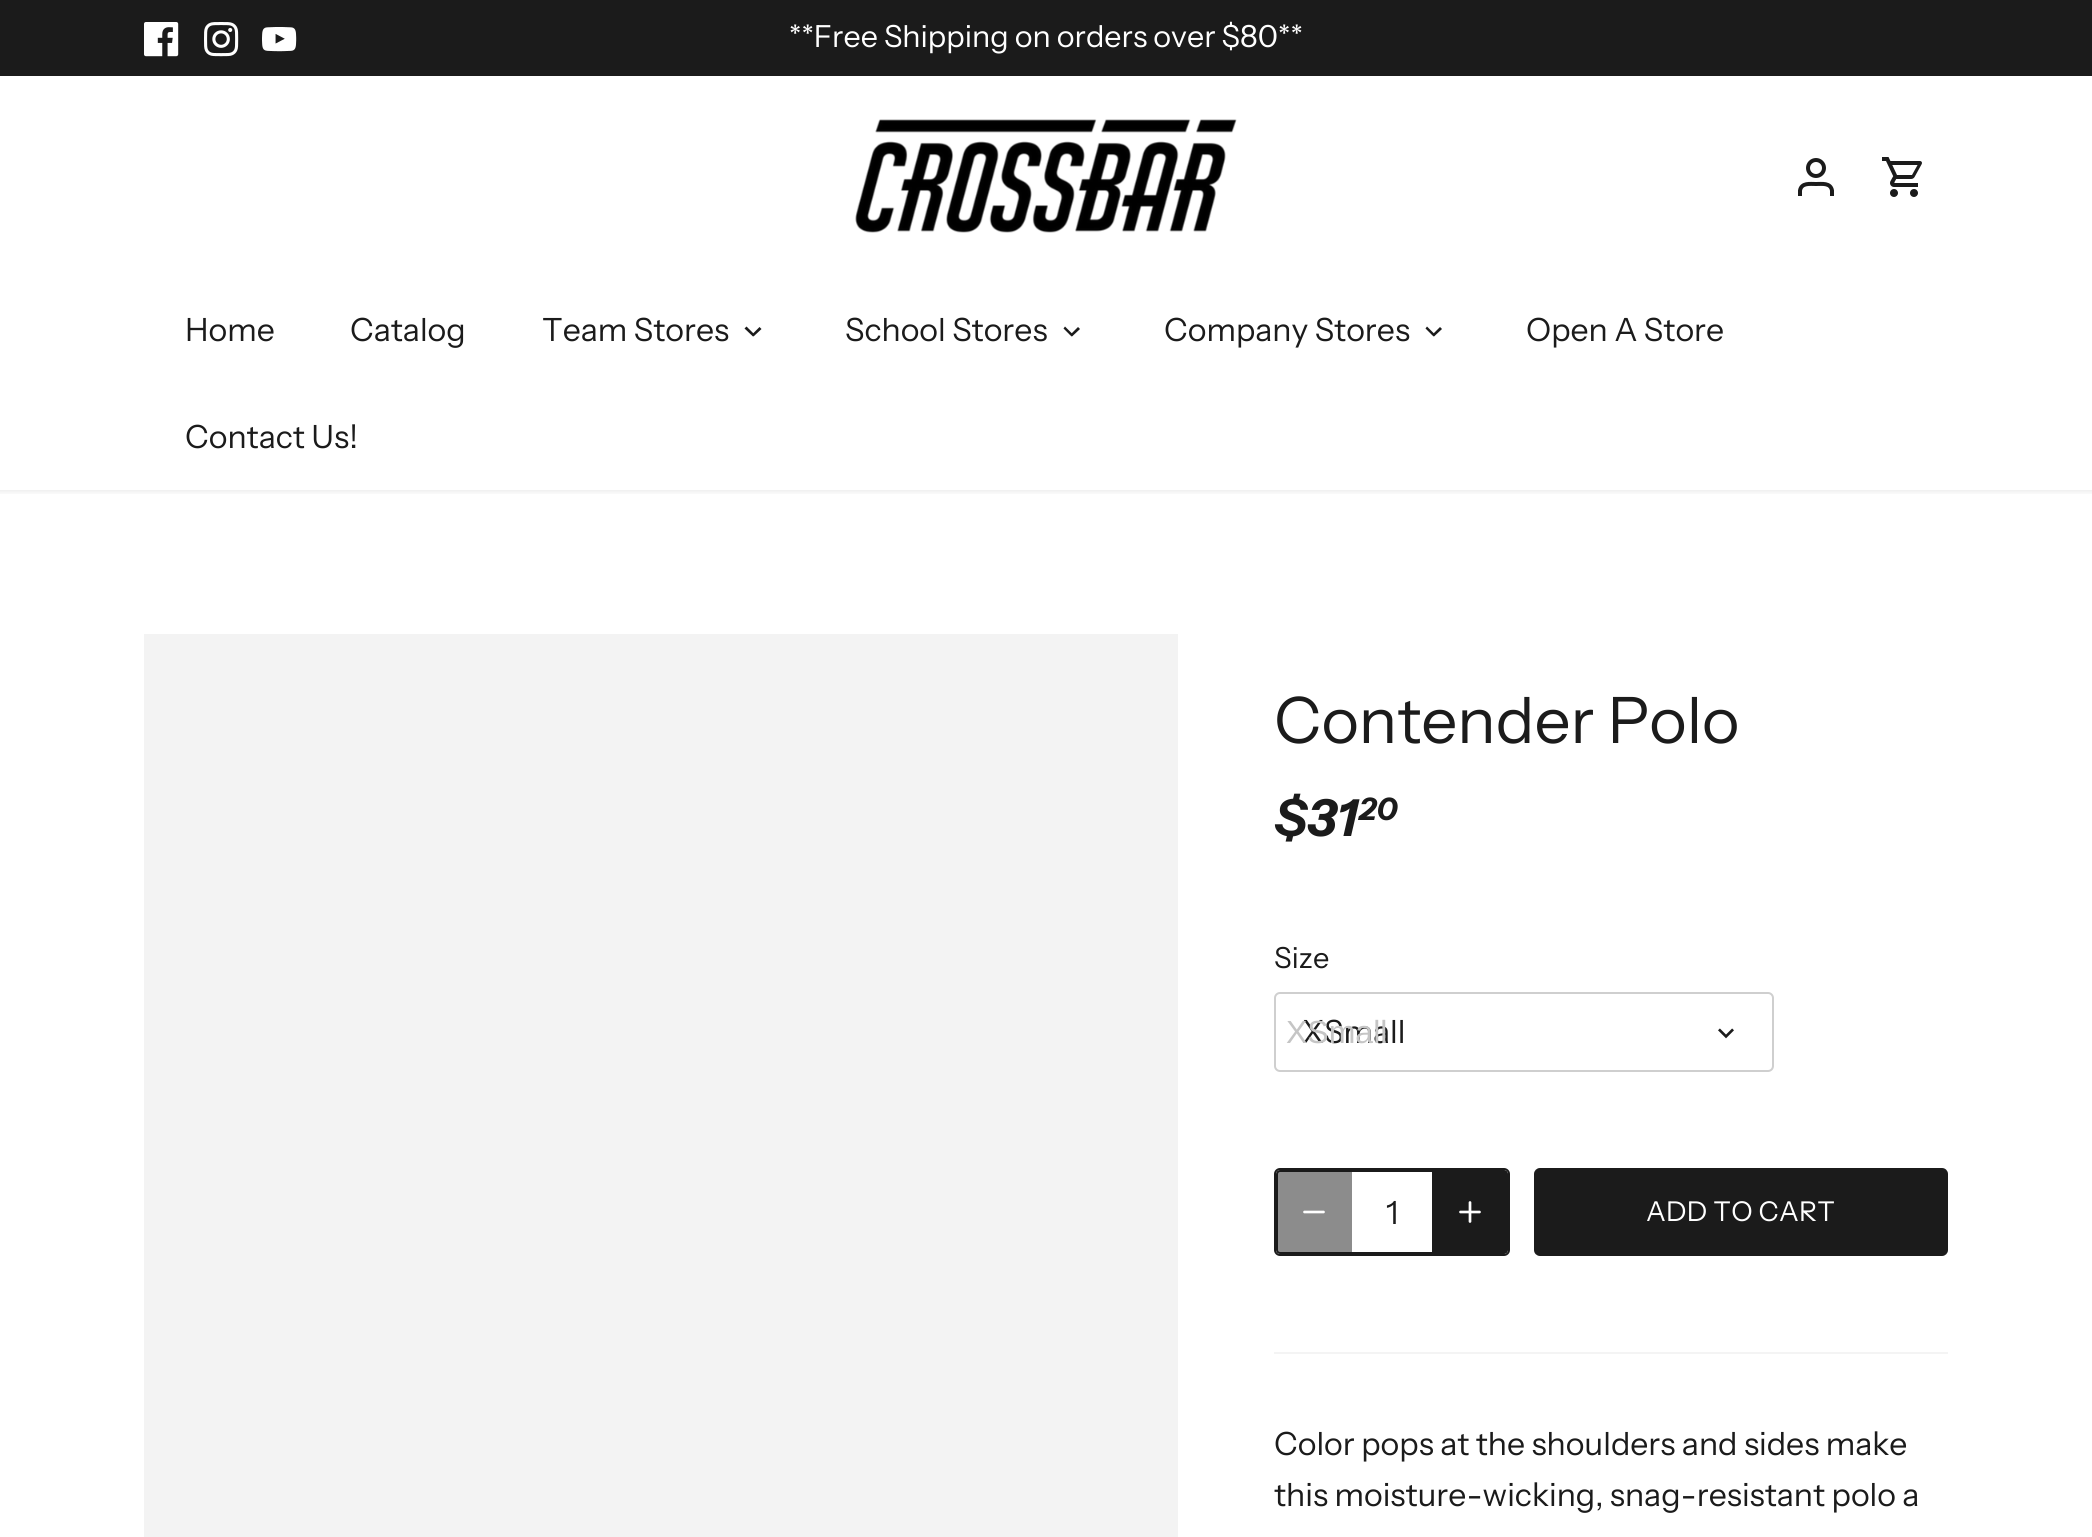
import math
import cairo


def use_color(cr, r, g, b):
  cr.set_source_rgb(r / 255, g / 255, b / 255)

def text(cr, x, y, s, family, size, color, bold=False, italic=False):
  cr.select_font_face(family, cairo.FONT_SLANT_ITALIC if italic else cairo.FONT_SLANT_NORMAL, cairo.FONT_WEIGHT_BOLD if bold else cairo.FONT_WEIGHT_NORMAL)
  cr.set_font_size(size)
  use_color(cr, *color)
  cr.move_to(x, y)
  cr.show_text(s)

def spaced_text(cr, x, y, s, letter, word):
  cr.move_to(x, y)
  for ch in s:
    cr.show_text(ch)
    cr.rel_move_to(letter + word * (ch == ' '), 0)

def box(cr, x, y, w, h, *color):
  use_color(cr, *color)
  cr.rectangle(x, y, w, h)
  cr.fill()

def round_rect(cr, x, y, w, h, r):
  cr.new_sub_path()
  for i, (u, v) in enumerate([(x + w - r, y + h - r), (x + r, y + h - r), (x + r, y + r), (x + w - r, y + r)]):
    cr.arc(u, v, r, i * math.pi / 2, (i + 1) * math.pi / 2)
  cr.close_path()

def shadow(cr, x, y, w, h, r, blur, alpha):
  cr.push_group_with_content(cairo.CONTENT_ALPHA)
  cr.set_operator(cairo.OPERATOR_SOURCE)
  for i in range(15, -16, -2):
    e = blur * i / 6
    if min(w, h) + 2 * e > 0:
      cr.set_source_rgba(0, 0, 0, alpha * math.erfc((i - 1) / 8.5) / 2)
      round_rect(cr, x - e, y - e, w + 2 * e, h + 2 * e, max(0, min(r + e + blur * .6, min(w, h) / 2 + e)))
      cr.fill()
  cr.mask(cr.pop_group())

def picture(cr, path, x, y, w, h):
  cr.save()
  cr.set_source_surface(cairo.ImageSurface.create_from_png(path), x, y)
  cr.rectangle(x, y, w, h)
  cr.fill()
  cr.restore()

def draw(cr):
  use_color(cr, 255, 255, 255)
  cr.paint()
  cr.save()
  cr.rectangle(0, 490, 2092, 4)
  cr.clip()
  use_color(cr, 0, 0, 0)
  shadow(cr, -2, 74, 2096, 418, 0, 3, 0.08)
  cr.restore()
  box(cr, 0, 0, 2092, 76, 27, 27, 27)
  picture(cr, "img_01.png", 144, 22, 35, 35)
  picture(cr, "img_02.png", 204, 22, 35, 35)
  picture(cr, "img_03.png", 262, 27, 35, 25)
  picture(cr, "img_04.png", 855, 119, 382, 114)
  cr.arc(1816, 168, 8, 0, 2 * math.pi)
  cr.set_line_width(4)
  cr.stroke()
  cr.new_path()
  cr.move_to(1832, 196)
  cr.line_to(1832, 190.5)
  cr.curve_to(1830.5, 182.5, 1822, 184, 1816, 184)
  cr.curve_to(1810, 184, 1801.5, 182.5, 1800, 190.5)
  cr.line_to(1800, 196)
  cr.stroke()
  picture(cr, "img_05.png", 1882, 157, 40, 40)
  cr.new_path()
  cr.move_to(759.5, 327)
  cr.line_to(761.5, 329)
  cr.line_to(753.5, 336.5)
  cr.line_to(752, 334.5)
  cr.close_path()
  cr.fill()
  cr.new_path()
  cr.move_to(746.5, 326.5)
  cr.line_to(754.5, 334.5)
  cr.line_to(753, 336.5)
  cr.line_to(744.5, 328.5)
  cr.close_path()
  cr.fill()
  cr.new_path()
  cr.move_to(1078, 327)
  cr.line_to(1080, 329)
  cr.line_to(1072, 336.5)
  cr.line_to(1070.5, 334.5)
  cr.close_path()
  cr.fill()
  cr.new_path()
  cr.move_to(1065, 326.5)
  cr.line_to(1073, 334.5)
  cr.line_to(1071.5, 336.5)
  cr.line_to(1063.5, 328.5)
  cr.close_path()
  cr.fill()
  cr.new_path()
  cr.move_to(1440, 327)
  cr.line_to(1442, 329)
  cr.line_to(1434, 336.5)
  cr.line_to(1432.5, 334.5)
  cr.close_path()
  cr.fill()
  cr.new_path()
  cr.move_to(1427, 326.5)
  cr.line_to(1435, 334.5)
  cr.line_to(1433.5, 336.5)
  cr.line_to(1425.5, 328.5)
  cr.close_path()
  cr.fill()
  box(cr, 144, 634, 1034, 903, 243, 243, 243)
  round_rect(cr, 1275, 993, 498, 78, 5)
  use_color(cr, 207, 207, 207)
  cr.set_line_width(2)
  cr.stroke()
  picture(cr, "img_06.png", 1718, 1028, 16, 11)
  round_rect(cr, 1277, 1171, 230, 82, 3)
  use_color(cr, 27, 27, 27)
  cr.stroke()
  round_rect(cr, 1275, 1169, 234, 86, 5)
  cr.stroke()
  cr.set_source_rgba(0.106, 0.106, 0.106, 0.5)
  cr.new_path()
  cr.move_to(1282, 1170)
  cr.line_to(1352, 1170)
  cr.line_to(1352, 1254)
  cr.line_to(1282, 1254)
  cr.curve_to(1278.5, 1254, 1276, 1251.5, 1276, 1248)
  cr.line_to(1276, 1176)
  cr.curve_to(1276, 1172.5, 1278.5, 1170, 1282, 1170)
  cr.close_path()
  cr.fill()
  cr.new_path()
  cr.move_to(1304.5, 1212)
  cr.line_to(1323.5, 1212)
  use_color(cr, 255, 255, 255)
  cr.set_line_width(2.7)
  cr.set_line_cap(cairo.LINE_CAP_ROUND)
  cr.set_line_join(cairo.LINE_JOIN_ROUND)
  cr.stroke()
  use_color(cr, 27, 27, 27)
  cr.new_path()
  cr.move_to(1432, 1170)
  cr.line_to(1502, 1170)
  cr.curve_to(1505.5, 1170, 1508, 1172.5, 1508, 1176)
  cr.line_to(1508, 1248)
  cr.curve_to(1508, 1251.5, 1505.5, 1254, 1502, 1254)
  cr.line_to(1432, 1254)
  cr.close_path()
  cr.fill()
  cr.new_path()
  cr.move_to(1470, 1202.5)
  cr.line_to(1470, 1221.5)
  cr.move_to(1460.5, 1212)
  cr.line_to(1479.5, 1212)
  use_color(cr, 255, 255, 255)
  cr.stroke()
  use_color(cr, 27, 27, 27)
  round_rect(cr, 1536, 1170, 410, 84, 4)
  cr.fill_preserve()
  cr.set_line_width(4)
  cr.set_line_cap(cairo.LINE_CAP_BUTT)
  cr.set_line_join(cairo.LINE_JOIN_MITER)
  cr.stroke()
  box(cr, 1274, 1352, 674, 2, 244, 244, 244)
  text(cr, 789, 47, "**Free Shipping on orders over $80**", "Instrument Sans", 30.4, (255, 255, 255))
  text(cr, 185, 341, "Home", "Instrument Sans", 32, (27, 27, 27))
  text(cr, 350, 341, "Catalog", "Instrument Sans", 32, (27, 27, 27))
  text(cr, 542, 341, "Team Stores", "Instrument Sans", 32, (27, 27, 27))
  text(cr, 845, 341, "School Stores", "Instrument Sans", 32, (27, 27, 27))
  text(cr, 1164, 341, "Company Stores", "Instrument Sans", 32, (27, 27, 27))
  text(cr, 1526, 341, "Open A Store", "Instrument Sans", 32, (27, 27, 27))
  text(cr, 185, 448, "Contact Us!", "Instrument Sans", 32, (27, 27, 27))
  text(cr, 1274, 743, "Contender Polo", "Instrument Sans", 64, (27, 27, 27))
  text(cr, 1274, 836, "$31", "Instrument Sans", 51, (27, 27, 27), bold=True, italic=True)
  text(cr, 1359, 820, "20", "Instrument Sans", 31, (27, 27, 27), bold=True, italic=True)
  text(cr, 1274, 968, "Size", "Instrument Sans", 29, (27, 27, 27))
  text(cr, 1302, 1043, "XSmall", "Instrument Sans", 32, (27, 27, 27))
  text(cr, 1286, 1043, "XSmall", "Liberation Sans", 32, (197, 197, 197))
  text(cr, 1386, 1224, "1", "Instrument Sans", 32, (27, 27, 27))
  cr.set_font_size(27.25)
  use_color(cr, 255, 255, 255)
  spaced_text(cr, 1646, 1221, "ADD TO CART", 0.25, 0)
  text(cr, 1274, 1455, "Color pops at the shoulders and sides make", "Instrument Sans", 32, (27, 27, 27))
  text(cr, 1274, 1506, "this moisture-wicking, snag-resistant polo a", "Instrument Sans", 32, (27, 27, 27))


surface = cairo.ImageSurface(cairo.FORMAT_RGB24, 2092, 1537)
cr = cairo.Context(surface)
options = cairo.FontOptions()
options.set_hint_metrics(cairo.HINT_METRICS_OFF)
options.set_hint_style(cairo.HINT_STYLE_NONE)
cr.set_font_options(options)
cr.set_miter_limit(4)
draw(cr)
surface.write_to_png("out.png")
